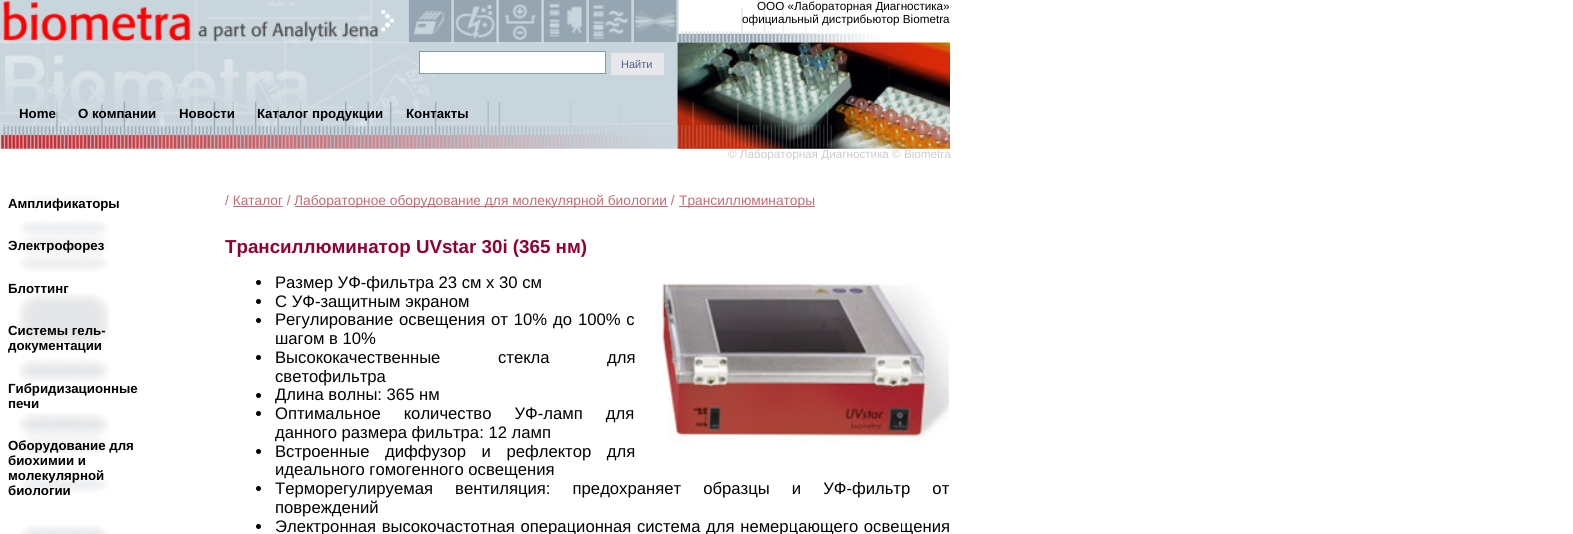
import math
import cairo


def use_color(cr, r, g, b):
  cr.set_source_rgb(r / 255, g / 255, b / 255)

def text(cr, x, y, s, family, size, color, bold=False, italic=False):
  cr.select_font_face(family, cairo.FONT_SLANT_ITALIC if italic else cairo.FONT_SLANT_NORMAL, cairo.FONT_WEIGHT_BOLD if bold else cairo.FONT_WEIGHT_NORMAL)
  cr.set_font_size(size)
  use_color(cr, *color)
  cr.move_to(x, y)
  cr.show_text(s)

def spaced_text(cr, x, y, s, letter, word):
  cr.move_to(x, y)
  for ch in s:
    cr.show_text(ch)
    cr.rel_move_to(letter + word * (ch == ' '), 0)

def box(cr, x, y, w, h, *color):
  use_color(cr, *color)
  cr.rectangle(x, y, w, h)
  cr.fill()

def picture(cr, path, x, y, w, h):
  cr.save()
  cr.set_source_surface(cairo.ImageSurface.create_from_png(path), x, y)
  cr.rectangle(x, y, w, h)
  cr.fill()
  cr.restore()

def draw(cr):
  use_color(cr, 255, 255, 255)
  cr.paint()
  picture(cr, "img_01.png", 0, 0, 409, 43)
  picture(cr, "img_02.png", 408, 0, 46, 43)
  picture(cr, "img_03.png", 453, 0, 46, 43)
  picture(cr, "img_04.png", 498, 0, 46, 43)
  picture(cr, "img_05.png", 543, 0, 46, 43)
  picture(cr, "img_06.png", 588, 0, 46, 43)
  picture(cr, "img_07.png", 633, 0, 46, 43)
  picture(cr, "img_08.png", 678, 0, 202, 43)
  picture(cr, "img_11.png", 0, 123, 678, 26)
  picture(cr, "img_09.png", 0, 42, 678, 82)
  picture(cr, "img_10.png", 677, 42, 273, 107)
  use_color(cr, 255, 255, 255)
  cr.rectangle(419.5, 51.5, 186, 22)
  cr.fill_preserve()
  use_color(cr, 126, 157, 185)
  cr.set_line_width(1)
  cr.stroke()
  box(cr, 611, 53, 53, 22, 232, 232, 234)
  picture(cr, "img_12.png", 17, 195, 93, 339)
  box(cr, 295, 206, 373, 1, 197, 107, 118)
  box(cr, 679, 206, 136, 1, 197, 107, 118)
  box(cr, 233, 206, 50, 1, 197, 107, 118)
  use_color(cr, 0, 0, 0)
  cr.arc(258.5, 282.5, 2.5, 0, 2 * math.pi)
  cr.fill()
  cr.arc(258.5, 301.5, 2.5, 0, 2 * math.pi)
  cr.fill()
  cr.arc(258.5, 320.5, 2.5, 0, 2 * math.pi)
  cr.fill()
  cr.arc(258.5, 357.5, 2.5, 0, 2 * math.pi)
  cr.fill()
  cr.arc(258.5, 395.5, 2.5, 0, 2 * math.pi)
  cr.fill()
  cr.arc(258.5, 413.5, 2.5, 0, 2 * math.pi)
  cr.fill()
  cr.arc(258.5, 451.5, 2.5, 0, 2 * math.pi)
  cr.fill()
  cr.arc(258.5, 488.5, 2.5, 0, 2 * math.pi)
  cr.fill()
  cr.arc(258.5, 526.5, 2.5, 0, 2 * math.pi)
  cr.fill()
  picture(cr, "img_13.png", 662, 283, 287, 159)
  text(cr, 757, 10, "ООО «Лабораторная Диагностика»", "Liberation Sans", 11.7, (0, 0, 0))
  text(cr, 742, 23, "официальный дистрибьютор Biometra", "Liberation Sans", 11.7, (0, 0, 0))
  text(cr, 621, 68, "Найти", "Liberation Sans", 11, (80, 96, 144))
  text(cr, 19, 118, "Home", "Liberation Sans", 13.25, (0, 0, 0), bold=True)
  text(cr, 78, 118, "О компании", "Liberation Sans", 13.25, (0, 0, 0), bold=True)
  text(cr, 179, 118, "Новости", "Liberation Sans", 13.25, (0, 0, 0), bold=True)
  text(cr, 257, 118, "Каталог продукции", "Liberation Sans", 13.25, (0, 0, 0), bold=True)
  text(cr, 406, 118, "Контакты", "Liberation Sans", 13.25, (0, 0, 0), bold=True)
  text(cr, 728, 158, "© Лабораторная Диагностика © Biometra", "Liberation Sans", 11.7, (204, 204, 204))
  text(cr, 8, 208, "Амплификаторы", "Liberation Sans", 13.25, (0, 0, 0), bold=True)
  text(cr, 8, 250, "Электрофорез", "Liberation Sans", 13.25, (0, 0, 0), bold=True)
  text(cr, 8, 293, "Блоттинг", "Liberation Sans", 13.25, (0, 0, 0), bold=True)
  text(cr, 8, 335, "Системы гель-", "Liberation Sans", 13.25, (0, 0, 0), bold=True)
  text(cr, 8, 350, "документации", "Liberation Sans", 13.25, (0, 0, 0), bold=True)
  text(cr, 8, 393, "Гибридизационные", "Liberation Sans", 13.25, (0, 0, 0), bold=True)
  text(cr, 8, 408, "печи", "Liberation Sans", 13.25, (0, 0, 0), bold=True)
  text(cr, 8, 450, "Оборудование для", "Liberation Sans", 13.25, (0, 0, 0), bold=True)
  text(cr, 8, 465, "биохимии и", "Liberation Sans", 13.25, (0, 0, 0), bold=True)
  text(cr, 8, 480, "молекулярной", "Liberation Sans", 13.25, (0, 0, 0), bold=True)
  text(cr, 8, 495, "биологии", "Liberation Sans", 13.25, (0, 0, 0), bold=True)
  text(cr, 225, 205, "/ Каталог /", "Liberation Sans", 13.75, (197, 107, 118))
  text(cr, 294, 205, "Лабораторное оборудование для молекулярной биологии /", "Liberation Sans", 13.75, (197, 107, 118))
  text(cr, 679, 205, "Трансиллюминаторы", "Liberation Sans", 13.75, (197, 107, 118))
  text(cr, 225, 253, "Трансиллюминатор UVstar 30i (365 нм)", "Liberation Sans", 18.75, (144, 0, 51), bold=True)
  text(cr, 275, 288, "Размер УФ-фильтра 23 см х 30 см", "Liberation Sans", 16.65, (0, 0, 0))
  text(cr, 275, 307, "С УФ-защитным экраном", "Liberation Sans", 16.65, (0, 0, 0))
  spaced_text(cr, 275, 325, "Регулирование освещения от 10% до 100% с", 0, 1.25)
  text(cr, 275, 344, "шагом в 10%", "Liberation Sans", 16.65, (0, 0, 0))
  spaced_text(cr, 275, 363, "Высококачественные стекла для", 0, 53)
  text(cr, 275, 382, "светофильтра", "Liberation Sans", 16.65, (0, 0, 0))
  text(cr, 275, 400, "Длина волны: 365 нм", "Liberation Sans", 16.65, (0, 0, 0))
  spaced_text(cr, 275, 419, "Оптимальное количество УФ-ламп для", 0, 18.5)
  text(cr, 275, 438, "данного размера фильтра: 12 ламп", "Liberation Sans", 16.65, (0, 0, 0))
  spaced_text(cr, 275, 457, "Встроенные диффузор и рефлектор для", 0, 11)
  text(cr, 275, 475, "идеального гомогенного освещения", "Liberation Sans", 16.65, (0, 0, 0))
  spaced_text(cr, 275, 494, "Терморегулируемая вентиляция: предохраняет образцы и УФ-фильтр от", 0, 17.5)
  text(cr, 275, 513, "повреждений", "Liberation Sans", 16.65, (0, 0, 0))
  spaced_text(cr, 275, 532, "Электронная высокочастотная операционная система для немерцающего освещения", 0, 1)


surface = cairo.ImageSurface(cairo.FORMAT_RGB24, 1573, 534)
cr = cairo.Context(surface)
options = cairo.FontOptions()
options.set_hint_metrics(cairo.HINT_METRICS_OFF)
options.set_hint_style(cairo.HINT_STYLE_NONE)
cr.set_font_options(options)
cr.set_miter_limit(4)
draw(cr)
surface.write_to_png("out.png")
